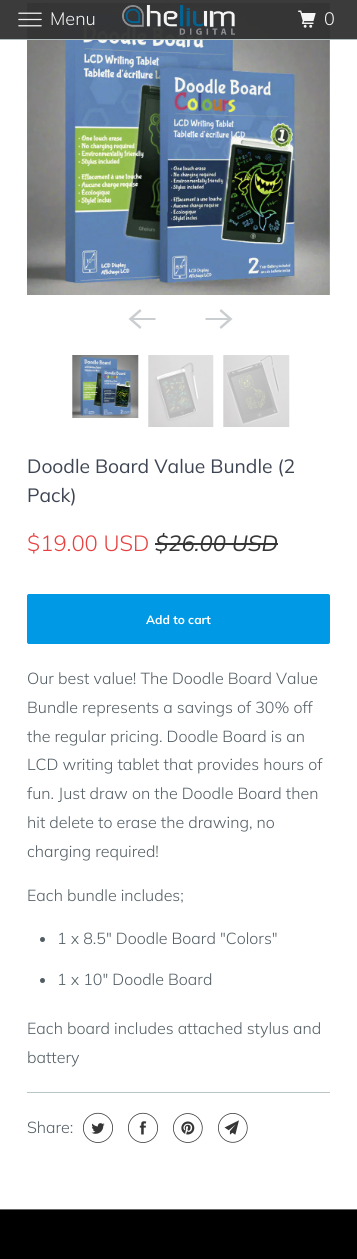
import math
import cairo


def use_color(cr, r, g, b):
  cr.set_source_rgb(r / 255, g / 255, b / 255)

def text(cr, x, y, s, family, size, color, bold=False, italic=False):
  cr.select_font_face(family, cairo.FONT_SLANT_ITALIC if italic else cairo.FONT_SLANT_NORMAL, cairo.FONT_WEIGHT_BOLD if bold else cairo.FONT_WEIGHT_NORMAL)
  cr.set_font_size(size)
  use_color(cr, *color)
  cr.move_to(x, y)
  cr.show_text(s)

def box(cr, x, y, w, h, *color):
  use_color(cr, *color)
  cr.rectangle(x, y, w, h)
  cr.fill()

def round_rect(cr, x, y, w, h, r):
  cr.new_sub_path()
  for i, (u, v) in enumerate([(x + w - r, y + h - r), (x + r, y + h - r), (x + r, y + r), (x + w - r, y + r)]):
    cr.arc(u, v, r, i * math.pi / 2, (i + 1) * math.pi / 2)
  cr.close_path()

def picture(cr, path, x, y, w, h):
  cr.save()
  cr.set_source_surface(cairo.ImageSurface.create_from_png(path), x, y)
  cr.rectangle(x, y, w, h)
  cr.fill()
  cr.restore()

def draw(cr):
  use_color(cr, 255, 255, 255)
  cr.paint()
  picture(cr, "img_04.png", 27, 3, 303, 292)
  cr.set_source_rgba(0.196, 0.196, 0.196, 0.95)
  cr.rectangle(0, 0, 357, 40)
  cr.fill()
  cr.set_source_rgba(0.722, 0.776, 0.776, 0.95)
  cr.rectangle(0, 39, 357, 1)
  cr.fill()
  picture(cr, "img_01.png", 18, 12, 24, 15)
  picture(cr, "img_02.png", 122, 5, 113, 30)
  picture(cr, "img_03.png", 298, 10, 18, 18)
  use_color(cr, 203, 206, 208)
  cr.new_path()
  cr.move_to(155.5, 318)
  cr.line_to(133.5, 318)
  cr.line_to(141.5, 311)
  cr.line_to(140, 309)
  cr.line_to(128.5, 319)
  cr.line_to(140, 329)
  cr.line_to(141.5, 327)
  cr.line_to(133.5, 320)
  cr.line_to(155.5, 320)
  cr.close_path()
  cr.fill()
  cr.new_path()
  cr.move_to(205.5, 320)
  cr.line_to(227.5, 320)
  cr.line_to(219.5, 327)
  cr.line_to(221, 329)
  cr.line_to(232.5, 319)
  cr.line_to(221, 309)
  cr.line_to(219.5, 311)
  cr.line_to(227.5, 318)
  cr.line_to(205.5, 318)
  cr.close_path()
  cr.fill()
  picture(cr, "img_05.png", 72, 355, 67, 63)
  picture(cr, "img_06.png", 148, 355, 66, 72)
  picture(cr, "img_07.png", 223, 355, 67, 72)
  box(cr, 155, 543, 123, 2, 54, 54, 54)
  use_color(cr, 0, 153, 229)
  round_rect(cr, 27, 594, 303, 50, 2)
  cr.fill()
  use_color(cr, 82, 93, 99)
  cr.arc(42.5, 939.5, 2.5, 0, 2 * math.pi)
  cr.fill()
  cr.arc(42.5, 980.5, 2.5, 0, 2 * math.pi)
  cr.fill()
  box(cr, 27, 1092, 303, 1, 184, 198, 198)
  picture(cr, "img_08.png", 83, 1112, 30, 31)
  picture(cr, "img_09.png", 128, 1112, 30, 31)
  picture(cr, "img_10.png", 173, 1113, 30, 30)
  picture(cr, "img_11.png", 218, 1113, 30, 30)
  box(cr, 0, 1210, 357, 49, 0, 0, 0)
  box(cr, 0, 1209, 357, 1, 102, 102, 102)
  text(cr, 50, 25, "Menu", "Muli Light", 18, (245, 245, 245))
  text(cr, 324, 25, "0", "Muli Light", 18, (245, 245, 245))
  text(cr, 27, 473, "Doodle Board Value Bundle (2", "Muli", 19.25, (62, 69, 82))
  text(cr, 27, 502, "Pack)", "Muli", 19.25, (62, 69, 82))
  text(cr, 27, 551, "$19.00 USD", "Muli Light", 22, (232, 64, 64))
  text(cr, 155, 551, "$26.00 USD", "Muli", 22, (54, 54, 54), italic=True)
  text(cr, 146, 624, "Add to cart", "Muli", 12, (255, 255, 255), bold=True)
  text(cr, 27, 684, "Our best value! The Doodle Board Value", "Muli Light", 16, (82, 93, 99))
  text(cr, 27, 713, "Bundle represents a savings of 30% off", "Muli Light", 16, (82, 93, 99))
  text(cr, 27, 742, "the regular pricing. Doodle Board is an", "Muli Light", 16, (82, 93, 99))
  text(cr, 27, 770, "LCD writing tablet that provides hours of", "Muli Light", 16, (82, 93, 99))
  text(cr, 27, 799, "fun. Just draw on the Doodle Board then", "Muli Light", 16, (82, 93, 99))
  text(cr, 27, 828, "hit delete to erase the drawing, no", "Muli Light", 16, (82, 93, 99))
  text(cr, 27, 857, "charging required!", "Muli Light", 16, (82, 93, 99))
  text(cr, 27, 901, "Each bundle includes;", "Muli Light", 16, (82, 93, 99))
  text(cr, 57, 944, "1 x 8.5\" Doodle Board \"Colors\"", "Muli Light", 16, (82, 93, 99))
  text(cr, 57, 985, "1 x 10\" Doodle Board", "Muli Light", 16, (82, 93, 99))
  text(cr, 27, 1034, "Each board includes attached stylus and", "Muli Light", 16, (82, 93, 99))
  text(cr, 27, 1063, "battery", "Muli Light", 16, (82, 93, 99))
  text(cr, 27, 1133, "Share:", "Muli Light", 16, (82, 93, 99))


surface = cairo.ImageSurface(cairo.FORMAT_RGB24, 357, 1259)
cr = cairo.Context(surface)
options = cairo.FontOptions()
options.set_hint_metrics(cairo.HINT_METRICS_OFF)
options.set_hint_style(cairo.HINT_STYLE_NONE)
cr.set_font_options(options)
cr.set_miter_limit(4)
draw(cr)
surface.write_to_png("out.png")
